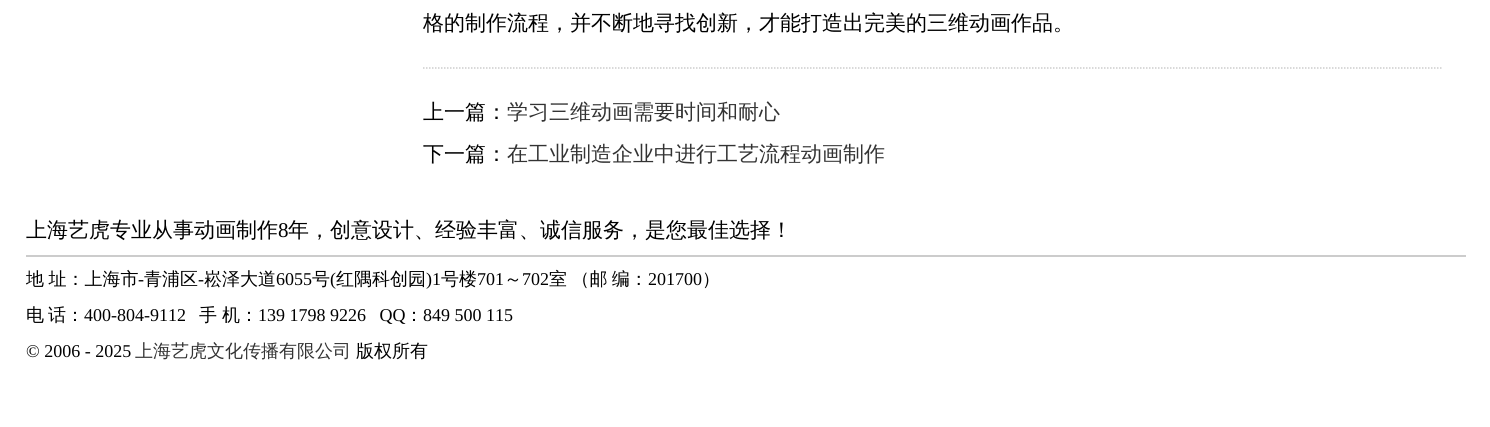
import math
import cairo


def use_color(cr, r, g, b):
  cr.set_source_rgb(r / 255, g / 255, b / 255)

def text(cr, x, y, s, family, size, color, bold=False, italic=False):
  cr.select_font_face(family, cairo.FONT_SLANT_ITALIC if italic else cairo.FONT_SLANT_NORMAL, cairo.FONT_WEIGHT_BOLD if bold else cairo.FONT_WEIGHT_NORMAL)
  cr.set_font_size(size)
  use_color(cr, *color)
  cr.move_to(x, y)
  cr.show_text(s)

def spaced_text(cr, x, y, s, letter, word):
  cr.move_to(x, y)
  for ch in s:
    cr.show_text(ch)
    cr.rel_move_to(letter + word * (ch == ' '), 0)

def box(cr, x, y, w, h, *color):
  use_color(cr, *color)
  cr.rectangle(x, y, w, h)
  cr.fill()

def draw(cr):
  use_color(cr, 255, 255, 255)
  cr.paint()
  cr.new_path()
  cr.move_to(423, 68)
  cr.line_to(1443, 68)
  use_color(cr, 204, 204, 204)
  cr.set_line_width(1.5)
  cr.set_dash([1.5, 1.5])
  cr.stroke()
  box(cr, 26, 255, 1440, 2, 204, 204, 204)
  text(cr, 423, 30, "格的制作流程，并不断地寻找创新，才能打造出完美的三维动画作品。", "WenQuanYi Zen Hei Medium", 21, (0, 0, 0))
  text(cr, 423, 119, "上一篇：", "WenQuanYi Zen Hei Medium", 21, (0, 0, 0))
  text(cr, 507, 119, "学习三维动画需要时间和耐心", "WenQuanYi Zen Hei Medium", 21, (51, 51, 51))
  text(cr, 423, 161, "下一篇：", "WenQuanYi Zen Hei Medium", 21, (0, 0, 0))
  text(cr, 507, 161, "在工业制造企业中进行工艺流程动画制作", "WenQuanYi Zen Hei Medium", 21, (51, 51, 51))
  text(cr, 26, 237, "上海艺虎专业从事动画制作", "WenQuanYi Zen Hei Medium", 21, (0, 0, 0))
  text(cr, 278, 237, "8", "Liberation Serif", 21, (0, 0, 0))
  text(cr, 288, 237, "年，创意设计、经验丰富、诚信服务，是您最佳选择！", "WenQuanYi Zen Hei Medium", 21, (0, 0, 0))
  cr.set_font_size(18)
  spaced_text(cr, 26, 285, "地 址：上海市", 0, -1)
  text(cr, 138, 285, "-", "Liberation Serif", 18, (0, 0, 0))
  text(cr, 144, 285, "青浦区", "WenQuanYi Zen Hei Medium", 18, (0, 0, 0))
  text(cr, 198, 285, "-", "Liberation Serif", 18, (0, 0, 0))
  text(cr, 204, 285, "崧泽大道", "WenQuanYi Zen Hei Medium", 18, (0, 0, 0))
  text(cr, 276, 285, "6055", "Liberation Serif", 18, (0, 0, 0))
  text(cr, 312, 285, "号", "WenQuanYi Zen Hei Medium", 18, (0, 0, 0))
  text(cr, 330, 285, "(", "Liberation Serif", 18, (0, 0, 0))
  text(cr, 336, 285, "红隅科创园", "WenQuanYi Zen Hei Medium", 18, (0, 0, 0))
  text(cr, 426, 285, ")1", "Liberation Serif", 18, (0, 0, 0))
  text(cr, 441, 285, "号楼", "WenQuanYi Zen Hei Medium", 18, (0, 0, 0))
  text(cr, 477, 285, "701", "Liberation Serif", 18, (0, 0, 0))
  text(cr, 504, 285, "～", "WenQuanYi Zen Hei Medium", 18, (0, 0, 0))
  text(cr, 522, 285, "702", "Liberation Serif", 18, (0, 0, 0))
  cr.select_font_face("WenQuanYi Zen Hei Medium")
  spaced_text(cr, 549, 285, "室 （邮 编：", 0, -1)
  text(cr, 648, 285, "201700", "Liberation Serif", 18, (0, 0, 0))
  text(cr, 702, 285, "）", "WenQuanYi Zen Hei Medium", 18, (0, 0, 0))
  text(cr, 26, 321, "电", "WenQuanYi Zen Hei Medium", 18, (0, 0, 0))
  text(cr, 48, 321, "话：", "WenQuanYi Zen Hei Medium", 18, (0, 0, 0))
  text(cr, 84, 321, "400-804-9112", "Liberation Serif", 18, (0, 0, 0))
  text(cr, 199, 321, "手", "WenQuanYi Zen Hei Medium", 18, (0, 0, 0))
  text(cr, 222, 321, "机：", "WenQuanYi Zen Hei Medium", 18, (0, 0, 0))
  text(cr, 258, 321, "139 1798 9226   QQ", "Liberation Serif", 18, (0, 0, 0))
  text(cr, 405, 321, "：", "WenQuanYi Zen Hei Medium", 18, (0, 0, 0))
  text(cr, 423, 321, "849 500 115", "Liberation Serif", 18, (0, 0, 0))
  text(cr, 26, 357, "© 2006 - 2025", "Liberation Serif", 18, (0, 0, 0))
  text(cr, 135, 357, "上海艺虎文化传播有限公司", "WenQuanYi Zen Hei Medium", 18, (51, 51, 51))
  text(cr, 356, 357, "版权所有", "WenQuanYi Zen Hei Medium", 18, (0, 0, 0))


surface = cairo.ImageSurface(cairo.FORMAT_RGB24, 1490, 427)
cr = cairo.Context(surface)
options = cairo.FontOptions()
options.set_hint_metrics(cairo.HINT_METRICS_OFF)
options.set_hint_style(cairo.HINT_STYLE_NONE)
cr.set_font_options(options)
cr.set_miter_limit(4)
draw(cr)
surface.write_to_png("out.png")
